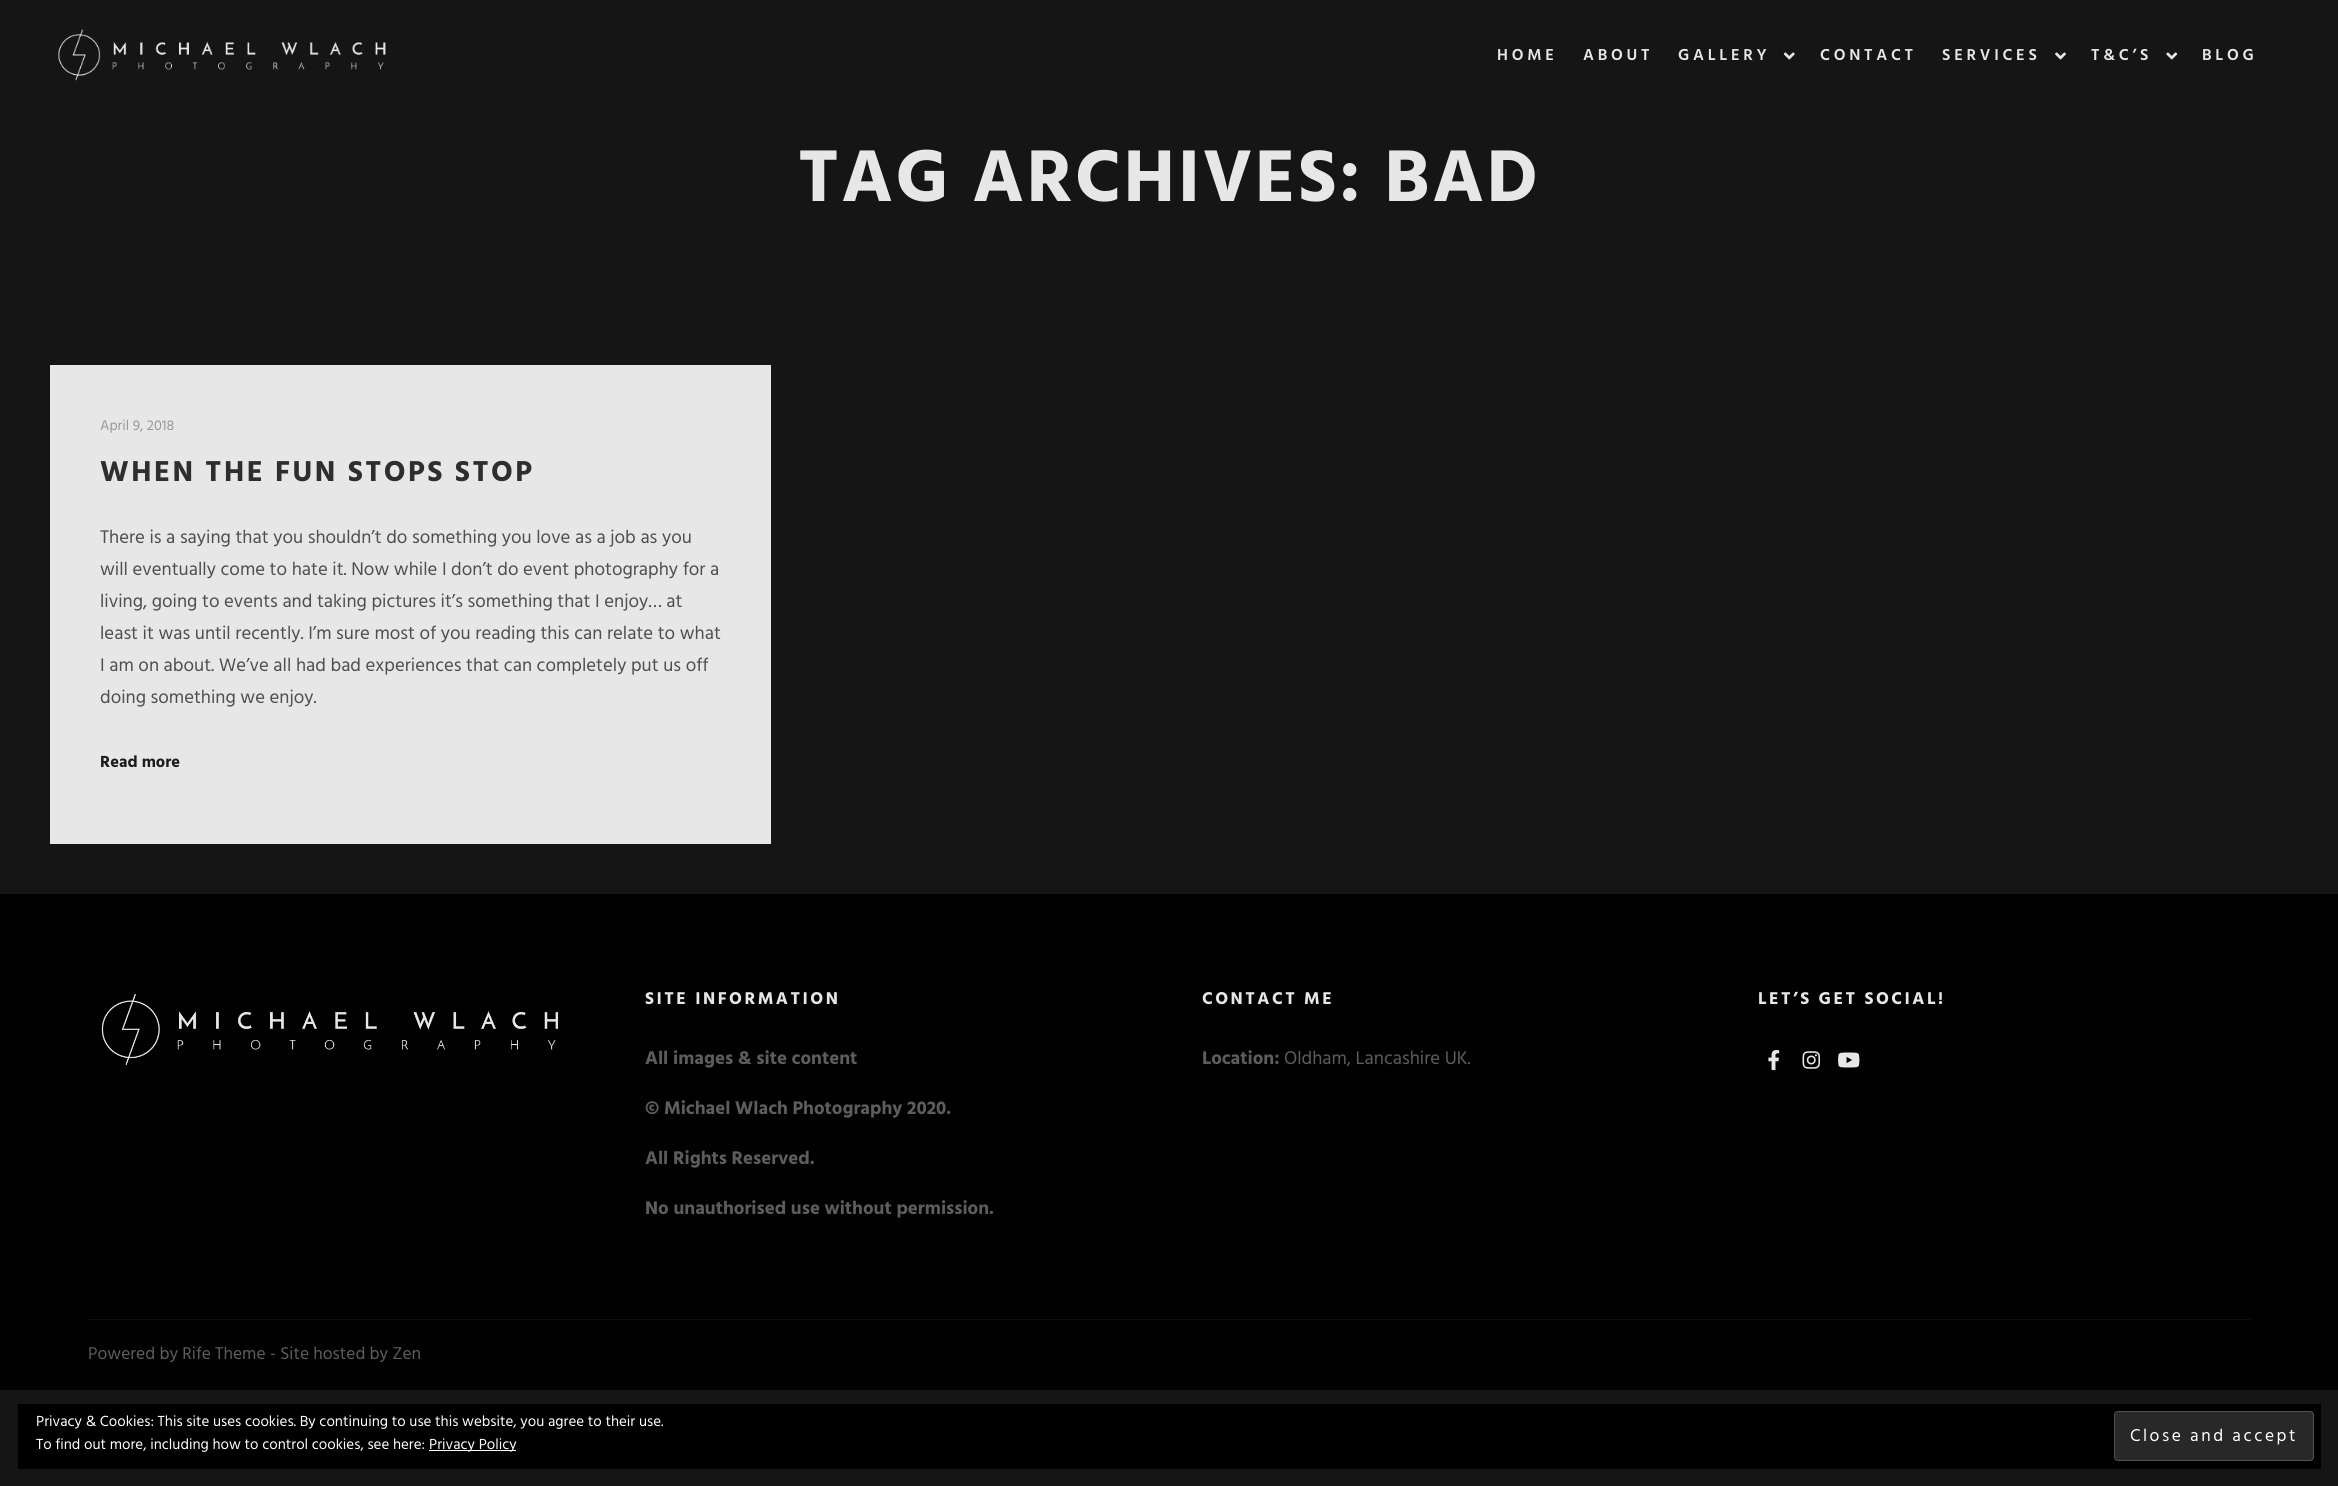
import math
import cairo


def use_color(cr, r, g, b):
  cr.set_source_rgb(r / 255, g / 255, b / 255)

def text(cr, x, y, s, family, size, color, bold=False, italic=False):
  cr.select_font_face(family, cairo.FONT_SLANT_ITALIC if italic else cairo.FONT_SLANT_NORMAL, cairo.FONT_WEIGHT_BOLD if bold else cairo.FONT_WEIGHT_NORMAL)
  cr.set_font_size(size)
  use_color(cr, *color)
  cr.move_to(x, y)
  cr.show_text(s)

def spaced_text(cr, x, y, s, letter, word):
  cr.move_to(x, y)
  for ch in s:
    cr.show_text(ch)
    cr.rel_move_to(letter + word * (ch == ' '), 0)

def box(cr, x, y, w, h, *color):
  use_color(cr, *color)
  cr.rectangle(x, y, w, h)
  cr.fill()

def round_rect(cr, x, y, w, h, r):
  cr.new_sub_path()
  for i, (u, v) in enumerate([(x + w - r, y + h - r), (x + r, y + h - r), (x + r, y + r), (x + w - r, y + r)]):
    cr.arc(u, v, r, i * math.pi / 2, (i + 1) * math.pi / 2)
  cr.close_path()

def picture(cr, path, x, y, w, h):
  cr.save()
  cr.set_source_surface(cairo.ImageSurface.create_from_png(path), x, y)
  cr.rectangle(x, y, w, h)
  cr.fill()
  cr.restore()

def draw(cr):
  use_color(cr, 21, 21, 21)
  cr.paint()
  picture(cr, "img_01.png", 58, 29, 328, 52)
  picture(cr, "img_02.png", 1783, 52, 12, 8)
  picture(cr, "img_03.png", 2055, 52, 11, 8)
  picture(cr, "img_04.png", 2166, 52, 12, 8)
  box(cr, 50, 365, 721, 479, 231, 231, 231)
  box(cr, 0, 894, 2338, 496, 1, 1, 1)
  picture(cr, "img_05.png", 101, 994, 458, 71)
  picture(cr, "img_06.png", 1768, 1050, 12, 20)
  picture(cr, "img_07.png", 1802, 1051, 19, 18)
  picture(cr, "img_08.png", 1838, 1052, 22, 16)
  box(cr, 88, 1319, 2163, 1, 14, 14, 14)
  box(cr, 18, 1404, 2303, 65, 0, 0, 0)
  box(cr, 429, 1450, 87, 1, 255, 255, 255)
  use_color(cr, 40, 40, 40)
  round_rect(cr, 2114.5, 1411.5, 199, 49, 3.5)
  cr.fill_preserve()
  use_color(cr, 83, 83, 83)
  cr.set_line_width(1)
  cr.stroke()
  cr.select_font_face("Hind SemiBold")
  cr.set_font_size(16.25)
  use_color(cr, 231, 231, 231)
  spaced_text(cr, 1497, 60, "HOME", 3.75, 0)
  spaced_text(cr, 1583, 60, "ABOUT", 3.75, 0)
  spaced_text(cr, 1678, 60, "GALLERY", 3.75, 0)
  spaced_text(cr, 1820, 60, "CONTACT", 3.75, 0)
  spaced_text(cr, 1942, 60, "SERVICES", 3.75, 0)
  spaced_text(cr, 2091, 60, "T&C’S", 3.75, 0)
  spaced_text(cr, 2202, 60, "BLOG", 3.75, 0)
  cr.select_font_face("Hind", cairo.FONT_SLANT_NORMAL, cairo.FONT_WEIGHT_BOLD)
  cr.set_font_size(75)
  spaced_text(cr, 798, 201, "TAG ARCHIVES: BAD", 2.5, 0)
  text(cr, 100, 430, "April 9, 2018", "Hind", 14.5, (152, 152, 152))
  cr.select_font_face("Hind", cairo.FONT_SLANT_NORMAL, cairo.FONT_WEIGHT_BOLD)
  cr.set_font_size(29.5)
  use_color(cr, 46, 46, 46)
  spaced_text(cr, 100, 481, "WHEN THE FUN STOPS STOP", 2.5, 0)
  text(cr, 100, 543, "There is a saying that you shouldn’t do something you love as a job as you", "Hind", 18.75, (78, 78, 78))
  text(cr, 100, 575, "will eventually come to hate it. Now while I don’t do event photography for a", "Hind", 18.75, (78, 78, 78))
  text(cr, 100, 607, "living, going to events and taking pictures it’s something that I enjoy… at", "Hind", 18.75, (78, 78, 78))
  text(cr, 100, 639, "least it was until recently. I’m sure most of you reading this can relate to what", "Hind", 18.75, (78, 78, 78))
  text(cr, 100, 671, "I am on about. We’ve all had bad experiences that can completely put us off", "Hind", 18.75, (78, 78, 78))
  text(cr, 100, 703, "doing something we enjoy.", "Hind", 18.75, (78, 78, 78))
  text(cr, 100, 767, "Read more", "Hind", 16.5, (29, 29, 29), bold=True)
  cr.set_font_size(17.5)
  use_color(cr, 231, 231, 231)
  spaced_text(cr, 645, 1004, "SITE INFORMATION", 2.5, 0)
  text(cr, 645, 1064, "All images & site content", "Hind", 18.75, (93, 93, 93), bold=True)
  text(cr, 645, 1114, "© Michael Wlach Photography 2020.", "Hind", 18.75, (93, 93, 93), bold=True)
  text(cr, 645, 1164, "All Rights Reserved.", "Hind", 18.75, (93, 93, 93), bold=True)
  text(cr, 645, 1214, "No unauthorised use without permission.", "Hind", 18.75, (93, 93, 93), bold=True)
  cr.set_font_size(17.5)
  use_color(cr, 231, 231, 231)
  spaced_text(cr, 1202, 1004, "CONTACT ME", 2.5, 0)
  text(cr, 1202, 1064, "Location:", "Hind", 18.75, (93, 93, 93), bold=True)
  text(cr, 1284, 1064, "Oldham, Lancashire UK.", "Hind", 18.75, (93, 93, 93))
  cr.select_font_face("Hind", cairo.FONT_SLANT_NORMAL, cairo.FONT_WEIGHT_BOLD)
  cr.set_font_size(17.5)
  use_color(cr, 231, 231, 231)
  spaced_text(cr, 1758, 1004, "LET’S GET SOCIAL!", 2.5, 0)
  text(cr, 88, 1359, "Powered by Rife Theme - Site hosted by Zen", "Hind", 17.5, (93, 93, 93))
  text(cr, 36, 1426, "Privacy & Cookies: This site uses cookies. By continuing to use this website, you agree to their use.", "Hind", 15, (255, 255, 255))
  text(cr, 36, 1449, "To find out more, including how to control cookies, see here:", "Hind", 15, (255, 255, 255))
  text(cr, 429, 1449, "Privacy Policy", "Hind", 15, (255, 255, 255))
  cr.set_font_size(17.5)
  spaced_text(cr, 2130, 1441, "Close and accept", 2.5, 0)


surface = cairo.ImageSurface(cairo.FORMAT_RGB24, 2338, 1486)
cr = cairo.Context(surface)
options = cairo.FontOptions()
options.set_hint_metrics(cairo.HINT_METRICS_OFF)
options.set_hint_style(cairo.HINT_STYLE_NONE)
cr.set_font_options(options)
cr.set_miter_limit(4)
draw(cr)
surface.write_to_png("out.png")
